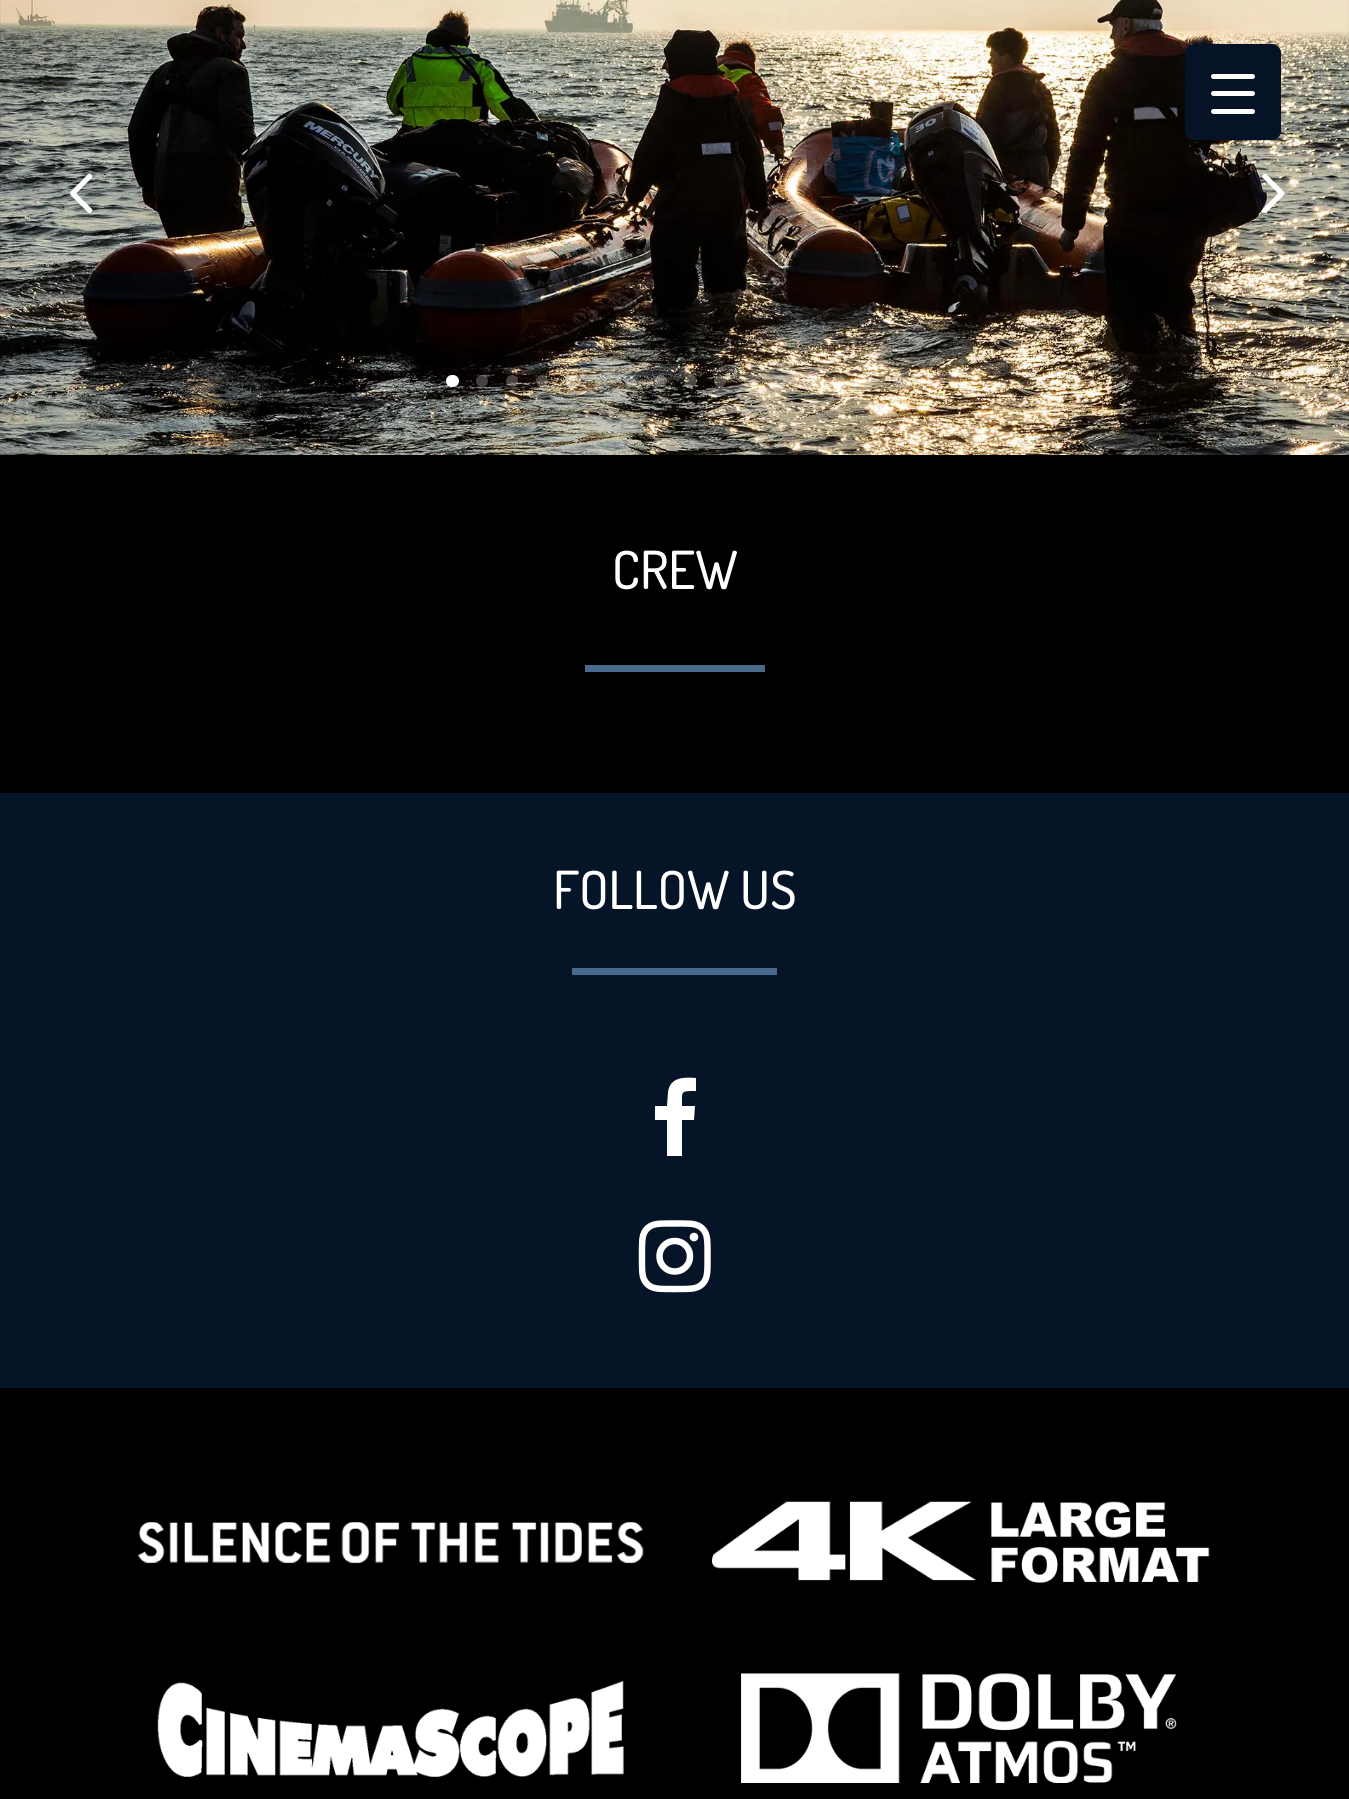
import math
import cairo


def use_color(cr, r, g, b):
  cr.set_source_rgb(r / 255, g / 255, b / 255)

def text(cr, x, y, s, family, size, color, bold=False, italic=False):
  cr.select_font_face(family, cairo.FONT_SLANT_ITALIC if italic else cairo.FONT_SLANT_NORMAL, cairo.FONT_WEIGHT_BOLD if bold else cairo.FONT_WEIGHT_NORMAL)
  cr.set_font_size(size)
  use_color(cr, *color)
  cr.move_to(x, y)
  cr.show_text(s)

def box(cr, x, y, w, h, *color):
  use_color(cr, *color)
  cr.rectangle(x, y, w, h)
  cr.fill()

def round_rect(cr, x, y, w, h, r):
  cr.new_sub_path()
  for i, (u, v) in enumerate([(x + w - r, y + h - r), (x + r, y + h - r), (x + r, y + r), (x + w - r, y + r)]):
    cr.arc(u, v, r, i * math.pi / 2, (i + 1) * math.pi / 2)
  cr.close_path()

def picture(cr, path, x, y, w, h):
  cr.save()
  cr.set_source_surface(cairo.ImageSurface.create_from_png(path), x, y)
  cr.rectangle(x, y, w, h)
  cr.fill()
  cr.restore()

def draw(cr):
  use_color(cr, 6, 20, 39)
  cr.paint()
  picture(cr, "img_01.png", 0, 0, 1349, 455)
  use_color(cr, 6, 19, 38)
  round_rect(cr, 1185, 44, 96, 96, 9)
  cr.fill()
  use_color(cr, 255, 255, 255)
  round_rect(cr, 1211, 91, 44, 5, 2.5)
  cr.fill()
  round_rect(cr, 1211, 74, 44, 5, 2.5)
  cr.fill()
  round_rect(cr, 1211, 109, 44, 5, 2.5)
  cr.fill()
  picture(cr, "img_02.png", 70, 173, 23, 40)
  picture(cr, "img_03.png", 1262, 173, 23, 40)
  round_rect(cr, 446, 375, 13, 12, 6)
  cr.fill()
  cr.set_source_rgba(1, 1, 1, 0.25)
  cr.arc(482, 381, 6, 0, 2 * math.pi)
  cr.fill()
  cr.arc(512, 381, 6, 0, 2 * math.pi)
  cr.fill()
  cr.arc(542, 381, 6, 0, 2 * math.pi)
  cr.fill()
  round_rect(cr, 565, 375, 13, 12, 6)
  cr.fill()
  cr.arc(601, 381, 6, 0, 2 * math.pi)
  cr.fill()
  cr.arc(631, 381, 6, 0, 2 * math.pi)
  cr.fill()
  cr.arc(661, 381, 6, 0, 2 * math.pi)
  cr.fill()
  round_rect(cr, 684, 375, 13, 12, 6)
  cr.fill()
  cr.arc(720, 381, 6, 0, 2 * math.pi)
  cr.fill()
  cr.arc(750, 381, 6, 0, 2 * math.pi)
  cr.fill()
  cr.arc(780, 381, 6, 0, 2 * math.pi)
  cr.fill()
  round_rect(cr, 803, 375, 13, 12, 6)
  cr.fill()
  cr.arc(839, 381, 6, 0, 2 * math.pi)
  cr.fill()
  cr.arc(869, 381, 6, 0, 2 * math.pi)
  cr.fill()
  cr.arc(899, 381, 6, 0, 2 * math.pi)
  cr.fill()
  box(cr, 0, 455, 1349, 338, 0, 0, 0)
  box(cr, 585, 665, 180, 7, 72, 106, 141)
  box(cr, 572, 968, 205, 7, 72, 106, 141)
  use_color(cr, 255, 255, 255)
  cr.new_path()
  cr.move_to(696, 1078)
  cr.line_to(696, 1091)
  cr.curve_to(680, 1091, 682, 1091, 682, 1106)
  cr.line_to(695, 1106)
  cr.line_to(694, 1120)
  cr.line_to(682, 1120)
  cr.line_to(682, 1156)
  cr.line_to(667, 1156)
  cr.line_to(667, 1120)
  cr.line_to(655, 1120)
  cr.line_to(655, 1106)
  cr.line_to(667, 1106)
  cr.line_to(668, 1092)
  cr.curve_to(670, 1077, 684, 1077, 696, 1078)
  cr.close_path()
  cr.fill()
  picture(cr, "img_04.png", 638, 1220, 73, 73)
  box(cr, 0, 1388, 1349, 411, 0, 0, 0)
  picture(cr, "img_05.png", 138, 1522, 506, 42)
  picture(cr, "img_06.png", 712, 1501, 498, 82)
  picture(cr, "img_07.png", 157, 1681, 467, 96)
  picture(cr, "img_08.png", 741, 1673, 436, 110)
  text(cr, 612, 589, "CREW", "Dosis Medium", 52.5, (255, 255, 255))
  text(cr, 553, 909, "FOLLOW US", "Dosis Medium", 52.5, (255, 255, 255))


surface = cairo.ImageSurface(cairo.FORMAT_RGB24, 1349, 1799)
cr = cairo.Context(surface)
options = cairo.FontOptions()
options.set_hint_metrics(cairo.HINT_METRICS_OFF)
options.set_hint_style(cairo.HINT_STYLE_NONE)
cr.set_font_options(options)
cr.set_miter_limit(4)
draw(cr)
surface.write_to_png("out.png")
